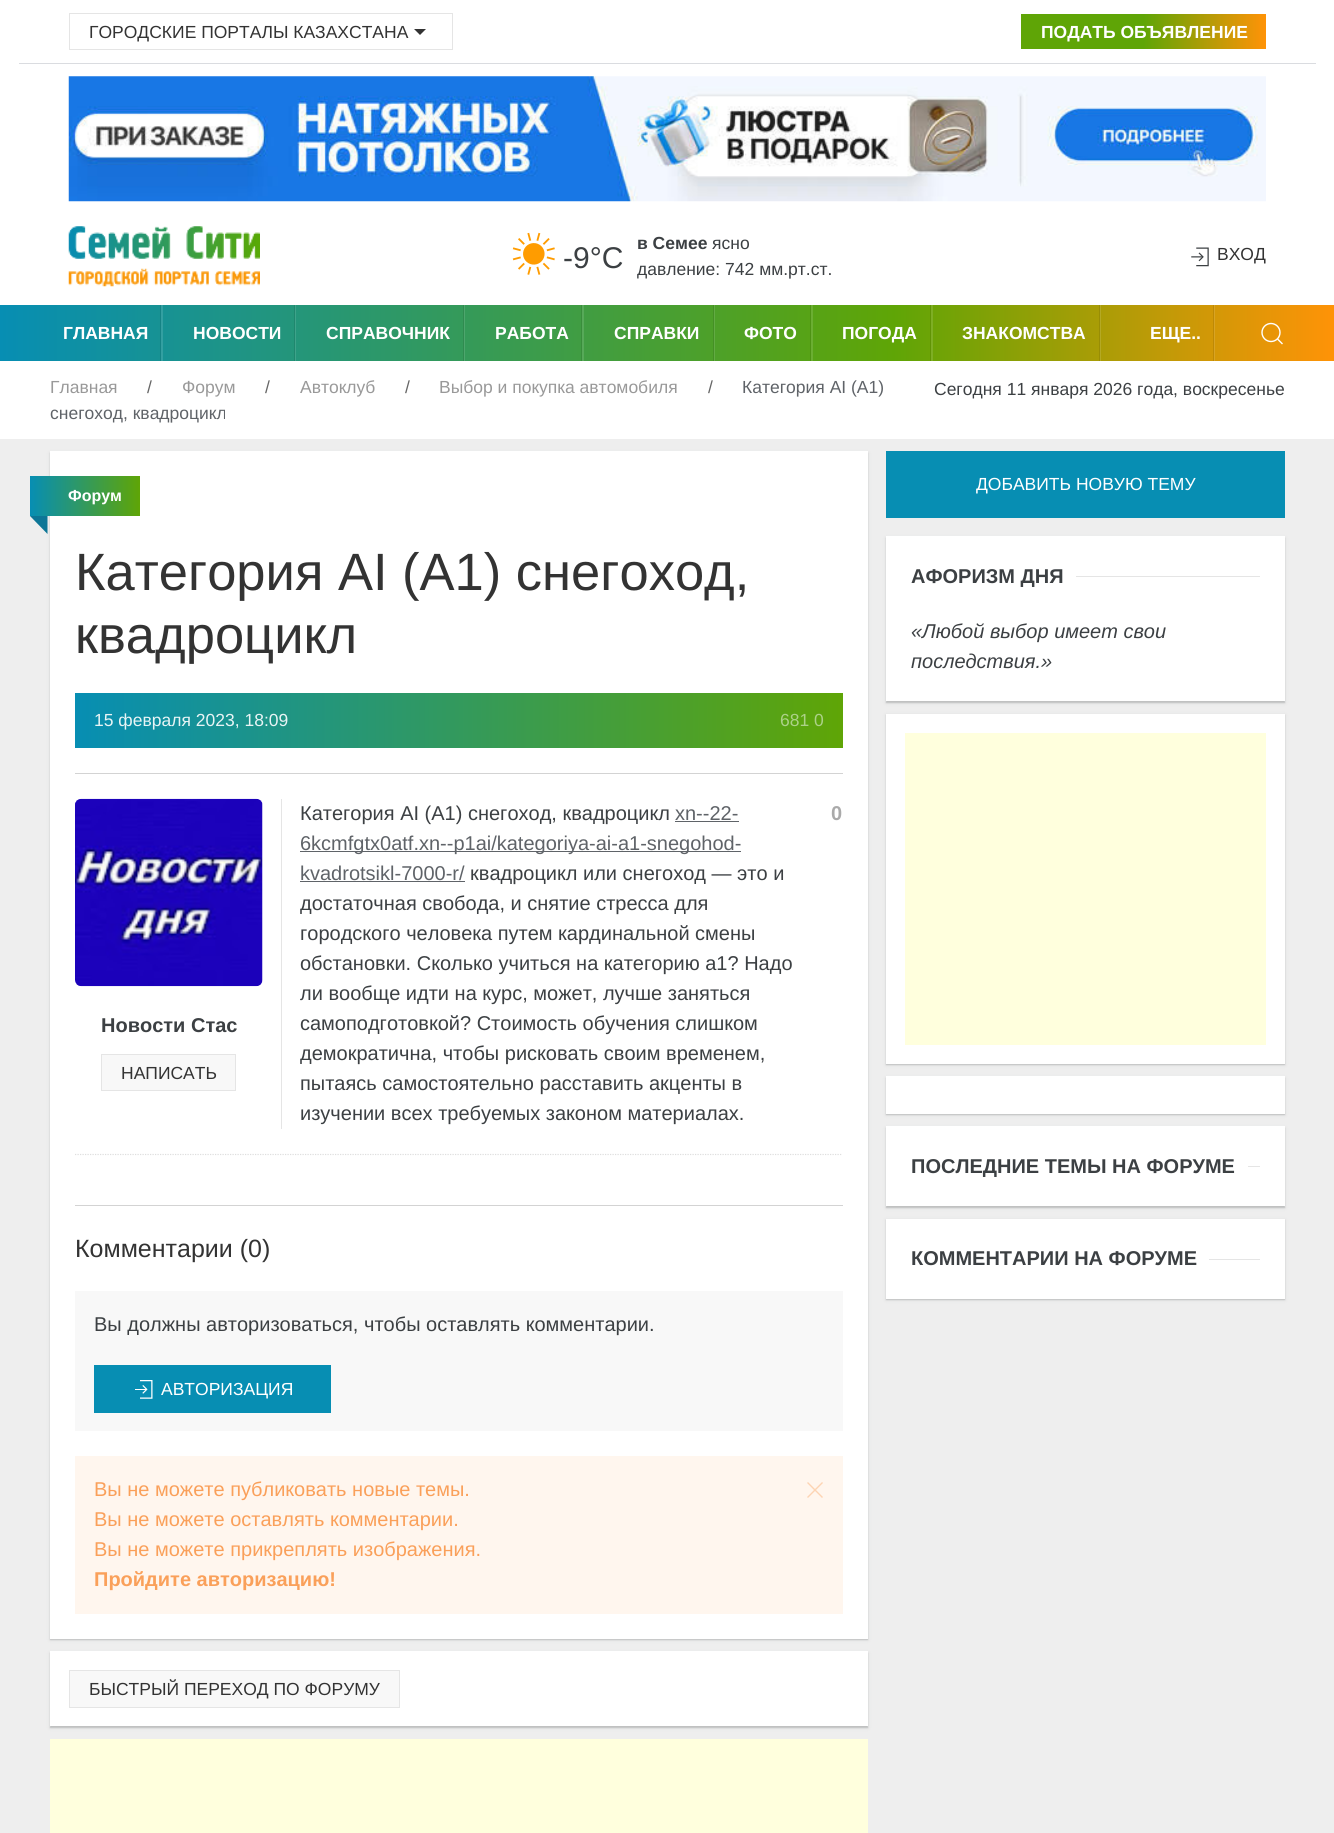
import math
import cairo


def use_color(cr, r, g, b):
  cr.set_source_rgb(r / 255, g / 255, b / 255)

def text(cr, x, y, s, family, size, color, bold=False, italic=False):
  cr.select_font_face(family, cairo.FONT_SLANT_ITALIC if italic else cairo.FONT_SLANT_NORMAL, cairo.FONT_WEIGHT_BOLD if bold else cairo.FONT_WEIGHT_NORMAL)
  cr.set_font_size(size)
  use_color(cr, *color)
  cr.move_to(x, y)
  cr.show_text(s)

def box(cr, x, y, w, h, *color):
  use_color(cr, *color)
  cr.rectangle(x, y, w, h)
  cr.fill()

def round_rect(cr, x, y, w, h, r):
  cr.new_sub_path()
  for i, (u, v) in enumerate([(x + w - r, y + h - r), (x + r, y + h - r), (x + r, y + r), (x + w - r, y + r)]):
    cr.arc(u, v, r, i * math.pi / 2, (i + 1) * math.pi / 2)
  cr.close_path()

def shadow(cr, x, y, w, h, r, blur, alpha):
  cr.push_group_with_content(cairo.CONTENT_ALPHA)
  cr.set_operator(cairo.OPERATOR_SOURCE)
  for i in range(15, -16, -2):
    e = blur * i / 6
    if min(w, h) + 2 * e > 0:
      cr.set_source_rgba(0, 0, 0, alpha * math.erfc((i - 1) / 8.5) / 2)
      round_rect(cr, x - e, y - e, w + 2 * e, h + 2 * e, max(0, min(r + e + blur * .6, min(w, h) / 2 + e)))
      cr.fill()
  cr.mask(cr.pop_group())

def picture(cr, path, x, y, w, h):
  cr.save()
  cr.set_source_surface(cairo.ImageSurface.create_from_png(path), x, y)
  cr.rectangle(x, y, w, h)
  cr.fill()
  cr.restore()

def draw(cr):
  use_color(cr, 238, 238, 238)
  cr.paint()
  box(cr, 0, 0, 1334, 305, 255, 255, 255)
  cr.rectangle(69.5, 13.5, 383, 36)
  use_color(cr, 229, 229, 229)
  cr.set_line_width(1)
  cr.stroke()
  use_color(cr, 51, 51, 51)
  cr.new_path()
  cr.move_to(414, 29)
  cr.line_to(426, 29)
  cr.line_to(420, 35)
  cr.close_path()
  cr.fill()
  gradient = cairo.LinearGradient(1266, 31, 1021, 31)
  gradient.add_color_stop_rgba(0, 1, 0.576, 0.027, 1)
  gradient.add_color_stop_rgba(0.5, 0.373, 0.647, 0.024, 1)
  cr.set_source(gradient)
  cr.rectangle(1021, 14, 245, 35)
  cr.fill()
  box(cr, 19, 63, 1297, 1, 218, 220, 224)
  picture(cr, "img_01.png", 68, 76, 1198, 126)
  picture(cr, "img_02.png", 68, 226, 192, 61)
  picture(cr, "img_03.png", 512, 232, 43, 43)
  picture(cr, "img_04.png", 1191, 247, 18, 20)
  gradient = cairo.LinearGradient(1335, 333, 0, 333)
  gradient.add_color_stop_rgba(0, 1, 0.576, 0.027, 1)
  gradient.add_color_stop_rgba(0.33, 0.373, 0.647, 0.024, 1)
  gradient.add_color_stop_rgba(1, 0.027, 0.557, 0.702, 1)
  cr.set_source(gradient)
  cr.rectangle(0, 305, 1334, 56)
  cr.fill()
  box(cr, 161, 305, 2, 56, 51, 159, 161)
  box(cr, 160, 305, 1, 56, 21, 131, 133)
  box(cr, 295, 305, 1, 56, 62, 163, 138)
  box(cr, 294, 305, 1, 56, 32, 135, 110)
  box(cr, 464, 305, 1, 56, 77, 166, 109)
  box(cr, 463, 305, 1, 56, 48, 139, 80)
  box(cr, 582, 305, 2, 56, 87, 169, 89)
  box(cr, 581, 305, 1, 56, 58, 141, 60)
  box(cr, 714, 305, 1, 56, 98, 171, 67)
  box(cr, 713, 305, 1, 56, 69, 144, 37)
  box(cr, 811, 305, 2, 56, 107, 174, 50)
  box(cr, 810, 305, 1, 56, 78, 147, 20)
  box(cr, 931, 305, 2, 56, 126, 174, 36)
  box(cr, 930, 305, 1, 56, 97, 148, 5)
  box(cr, 1100, 305, 1, 56, 180, 169, 36)
  box(cr, 1099, 305, 1, 56, 152, 141, 5)
  box(cr, 1214, 305, 1, 56, 216, 164, 37)
  box(cr, 1213, 305, 1, 56, 190, 137, 6)
  cr.arc(1271, 332.5, 9, 0, 2 * math.pi)
  use_color(cr, 255, 255, 255)
  cr.set_line_width(1.4)
  cr.stroke()
  cr.new_path()
  cr.move_to(1277.5, 339)
  cr.line_to(1282.5, 344)
  cr.close_path()
  cr.stroke()
  box(cr, 0, 361, 1334, 78, 255, 255, 255)
  use_color(cr, 60, 64, 67)
  shadow(cr, 50, 453, 818, 1187, 0, 2, 0.1)
  shadow(cr, 50, 453, 818, 1187, 0, 0.5, 0.2)
  box(cr, 50, 451, 818, 1188, 255, 255, 255)
  gradient = cairo.LinearGradient(140, 496, 30, 496)
  gradient.add_color_stop_rgba(0, 0.373, 0.647, 0.024, 1)
  gradient.add_color_stop_rgba(1, 0.027, 0.557, 0.702, 1)
  cr.set_source(gradient)
  cr.rectangle(30, 476, 110, 40)
  cr.fill()
  use_color(cr, 13, 118, 150)
  cr.new_path()
  cr.move_to(47.5, 516)
  cr.line_to(47.5, 534)
  cr.line_to(30, 516)
  cr.close_path()
  cr.fill()
  gradient = cairo.LinearGradient(843, 720, 75, 720)
  gradient.add_color_stop_rgba(0, 0.373, 0.647, 0.024, 1)
  gradient.add_color_stop_rgba(1, 0.027, 0.557, 0.702, 1)
  cr.set_source(gradient)
  cr.rectangle(75, 693, 768, 55)
  cr.fill()
  box(cr, 75, 773, 768, 1, 211, 211, 211)
  box(cr, 75, 1205, 768, 1, 211, 211, 211)
  cr.new_path()
  cr.move_to(75, 1154.5)
  cr.line_to(842.5, 1154.5)
  use_color(cr, 222, 222, 222)
  cr.set_line_width(1.2)
  cr.set_dash([1.25, 1.25])
  cr.stroke()
  picture(cr, "img_05.png", 75, 798, 188, 189)
  use_color(cr, 248, 248, 248)
  cr.rectangle(101.5, 1054.5, 134, 36)
  cr.fill_preserve()
  use_color(cr, 229, 229, 229)
  cr.set_line_width(1)
  cr.set_dash([])
  cr.stroke()
  box(cr, 281, 799, 1, 330, 229, 229, 229)
  box(cr, 675, 821, 64, 1, 95, 99, 104)
  box(cr, 300, 851, 441, 1, 95, 99, 104)
  box(cr, 300, 881, 165, 1, 95, 99, 104)
  box(cr, 75, 1291, 768, 140, 248, 248, 248)
  box(cr, 94, 1365, 237, 48, 7, 142, 179)
  picture(cr, "img_06.png", 135, 1380, 18, 19)
  box(cr, 75, 1456, 768, 158, 255, 246, 238)
  cr.new_path()
  cr.move_to(807.5, 1482.5)
  cr.line_to(822.5, 1497.5)
  cr.move_to(822.5, 1482.5)
  cr.line_to(807.5, 1497.5)
  use_color(cr, 253, 212, 179)
  cr.set_line_width(1.4)
  cr.stroke()
  use_color(cr, 60, 64, 67)
  shadow(cr, 50, 1653, 818, 75, 0, 2, 0.1)
  shadow(cr, 50, 1653, 818, 75, 0, 0.5, 0.2)
  box(cr, 50, 1651, 818, 75, 255, 255, 255)
  use_color(cr, 248, 248, 248)
  cr.rectangle(69.5, 1670.5, 330, 37)
  cr.fill_preserve()
  use_color(cr, 229, 229, 229)
  cr.set_line_width(1)
  cr.stroke()
  box(cr, 50, 1739, 818, 94, 255, 255, 221)
  box(cr, 886, 451, 399, 67, 7, 142, 179)
  use_color(cr, 60, 64, 67)
  shadow(cr, 886, 538, 399, 165, 0, 2, 0.1)
  shadow(cr, 886, 538, 399, 165, 0, 0.5, 0.2)
  box(cr, 886, 536, 399, 165, 255, 255, 255)
  box(cr, 1076, 576, 184, 1, 229, 229, 229)
  use_color(cr, 60, 64, 67)
  shadow(cr, 886, 715, 399, 350, 0, 2, 0.1)
  shadow(cr, 886, 715, 399, 350, 0, 0.5, 0.2)
  box(cr, 886, 714, 399, 350, 255, 255, 255)
  box(cr, 905, 733, 361, 312, 255, 255, 221)
  use_color(cr, 60, 64, 67)
  shadow(cr, 886, 1078, 399, 37, 0, 2, 0.1)
  shadow(cr, 886, 1078, 399, 37, 0, 0.5, 0.2)
  box(cr, 886, 1076, 399, 38, 255, 255, 255)
  use_color(cr, 60, 64, 67)
  shadow(cr, 886, 1128, 399, 80, 0, 2, 0.1)
  shadow(cr, 886, 1128, 399, 80, 0, 0.5, 0.2)
  box(cr, 886, 1126, 399, 80, 255, 255, 255)
  box(cr, 1248, 1166, 12, 1, 229, 229, 229)
  use_color(cr, 60, 64, 67)
  shadow(cr, 886, 1220, 399, 80, 0, 2, 0.1)
  shadow(cr, 886, 1220, 399, 80, 0, 0.5, 0.2)
  box(cr, 886, 1219, 399, 80, 255, 255, 255)
  box(cr, 1209, 1259, 51, 1, 229, 229, 229)
  text(cr, 89, 38, "ГОРОДСКИЕ ПОРТАЛЫ КАЗАХСТАНА", "Liberation Sans", 17.5, (51, 51, 51))
  text(cr, 1041, 38, "ПОДАТЬ ОБЪЯВЛЕНИЕ", "Liberation Sans", 17.5, (255, 255, 255), bold=True)
  text(cr, 563, 268, "-9°С", "Liberation Sans", 30, (60, 64, 67))
  text(cr, 637, 249, "в Семее", "Liberation Sans", 17.5, (60, 64, 67), bold=True)
  text(cr, 712, 249, "ясно", "Liberation Sans", 17.5, (60, 64, 67))
  text(cr, 637, 275, "давление: 742 мм.рт.ст.", "Liberation Sans", 17.5, (60, 64, 67))
  text(cr, 1217, 260, "ВХОД", "Liberation Sans", 17.5, (51, 51, 51))
  text(cr, 63, 339, "ГЛАВНАЯ", "Liberation Sans", 17.5, (255, 255, 255), bold=True)
  text(cr, 193, 339, "НОВОСТИ", "Liberation Sans", 17.5, (255, 255, 255), bold=True)
  text(cr, 326, 339, "СПРАВОЧНИК", "Liberation Sans", 17.5, (255, 255, 255), bold=True)
  text(cr, 495, 339, "РАБОТА", "Liberation Sans", 17.5, (255, 255, 255), bold=True)
  text(cr, 614, 339, "СПРАВКИ", "Liberation Sans", 17.5, (255, 255, 255), bold=True)
  text(cr, 744, 339, "ФОТО", "Liberation Sans", 17.5, (255, 255, 255), bold=True)
  text(cr, 842, 339, "ПОГОДА", "Liberation Sans", 17.5, (255, 255, 255), bold=True)
  text(cr, 962, 339, "ЗНАКОМСТВА", "Liberation Sans", 17.5, (255, 255, 255), bold=True)
  text(cr, 1150, 339, "ЕЩЕ..", "Liberation Sans", 17.5, (255, 255, 255), bold=True)
  text(cr, 708, 393, "/", "Liberation Sans", 17.5, (102, 102, 102))
  text(cr, 742, 393, "Категория АI (А1)", "Liberation Sans", 17.5, (95, 99, 104))
  text(cr, 50, 419, "снегоход, квадроцикл", "Liberation Sans", 17.5, (95, 99, 104))
  text(cr, 50, 393, "Главная", "Liberation Sans", 17.5, (153, 153, 153))
  text(cr, 147, 393, "/", "Liberation Sans", 17.5, (102, 102, 102))
  text(cr, 182, 393, "Форум", "Liberation Sans", 17.5, (153, 153, 153))
  text(cr, 265, 393, "/", "Liberation Sans", 17.5, (102, 102, 102))
  text(cr, 300, 393, "Автоклуб", "Liberation Sans", 17.5, (153, 153, 153))
  text(cr, 405, 393, "/", "Liberation Sans", 17.5, (102, 102, 102))
  text(cr, 439, 393, "Выбор и покупка автомобиля", "Liberation Sans", 17.5, (153, 153, 153))
  text(cr, 934, 395, "Сегодня 11 января 2026 года, воскресенье", "Liberation Sans", 17.5, (60, 64, 67))
  text(cr, 68, 501, "Форум", "Liberation Sans", 16, (255, 255, 255), bold=True)
  text(cr, 75, 590, "Категория АI (А1) снегоход,", "Liberation Sans", 52.5, (51, 51, 51))
  text(cr, 75, 653, "квадроцикл", "Liberation Sans", 52.5, (51, 51, 51))
  text(cr, 94, 726, "15 февраля 2023, 18:09", "Liberation Sans", 17.5, (232, 244, 245))
  text(cr, 780, 726, "681", "Liberation Sans", 17.5, (172, 209, 136))
  text(cr, 814, 726, "0", "Liberation Sans", 17.5, (172, 209, 136))
  text(cr, 101, 1032, "Новости Стас", "Liberation Sans", 20, (60, 64, 67), bold=True)
  text(cr, 121, 1079, "НАПИСАТЬ", "Liberation Sans", 17.5, (51, 51, 51))
  text(cr, 300, 820, "Категория АI (А1) снегоход, квадроцикл", "Liberation Sans", 20, (60, 64, 67))
  text(cr, 675, 820, "xn--22-", "Liberation Sans", 20, (95, 99, 104))
  text(cr, 300, 850, "6kcmfgtx0atf.xn--p1ai/kategoriya-ai-a1-snegohod-", "Liberation Sans", 20, (95, 99, 104))
  text(cr, 300, 880, "kvadrotsikl-7000-r/", "Liberation Sans", 20, (95, 99, 104))
  text(cr, 470, 880, "квадроцикл или снегоход — это и", "Liberation Sans", 20, (60, 64, 67))
  text(cr, 300, 910, "достаточная свобода, и снятие стресса для", "Liberation Sans", 20, (60, 64, 67))
  text(cr, 300, 940, "городского человека путем кардинальной смены", "Liberation Sans", 20, (60, 64, 67))
  text(cr, 300, 970, "обстановки. Сколько учиться на категорию а1? Надо", "Liberation Sans", 20, (60, 64, 67))
  text(cr, 300, 1000, "ли вообще идти на курс, может, лучше заняться", "Liberation Sans", 20, (60, 64, 67))
  text(cr, 300, 1030, "самоподготовкой? Стоимость обучения слишком", "Liberation Sans", 20, (60, 64, 67))
  text(cr, 300, 1060, "демократична, чтобы рисковать своим временем,", "Liberation Sans", 20, (60, 64, 67))
  text(cr, 300, 1090, "пытаясь самостоятельно расставить акценты в", "Liberation Sans", 20, (60, 64, 67))
  text(cr, 300, 1120, "изучении всех требуемых законом материалах.", "Liberation Sans", 20, (60, 64, 67))
  text(cr, 831, 820, "0", "Liberation Sans", 20, (170, 170, 170), bold=True)
  text(cr, 75, 1257, "Комментарии (0)", "Liberation Sans", 25, (51, 51, 51))
  text(cr, 94, 1331, "Вы должны авторизоваться, чтобы оставлять комментарии.", "Liberation Sans", 20, (60, 64, 67))
  text(cr, 161, 1395, "АВТОРИЗАЦИЯ", "Liberation Sans", 17.5, (255, 255, 255))
  text(cr, 94, 1496, "Вы не можете публиковать новые темы.", "Liberation Sans", 20, (250, 160, 90))
  text(cr, 94, 1526, "Вы не можете оставлять комментарии.", "Liberation Sans", 20, (250, 160, 90))
  text(cr, 94, 1556, "Вы не можете прикреплять изображения.", "Liberation Sans", 20, (250, 160, 90))
  text(cr, 94, 1586, "Пройдите авторизацию!", "Liberation Sans", 20, (250, 160, 90), bold=True)
  text(cr, 89, 1695, "БЫСТРЫЙ ПЕРЕХОД ПО ФОРУМУ", "Liberation Sans", 17.5, (51, 51, 51))
  text(cr, 976, 490, "ДОБАВИТЬ НОВУЮ ТЕМУ", "Liberation Sans", 17.5, (255, 255, 255))
  text(cr, 911, 583, "АФОРИЗМ ДНЯ", "Liberation Sans", 20, (60, 64, 67), bold=True)
  text(cr, 911, 638, "«Любой выбор имеет свои", "Liberation Sans", 20, (60, 64, 67), italic=True)
  text(cr, 911, 668, "последствия.»", "Liberation Sans", 20, (60, 64, 67), italic=True)
  text(cr, 911, 1173, "ПОСЛЕДНИЕ ТЕМЫ НА ФОРУМЕ", "Liberation Sans", 20, (60, 64, 67), bold=True)
  text(cr, 911, 1265, "КОММЕНТАРИИ НА ФОРУМЕ", "Liberation Sans", 20, (60, 64, 67), bold=True)


surface = cairo.ImageSurface(cairo.FORMAT_RGB24, 1334, 1833)
cr = cairo.Context(surface)
options = cairo.FontOptions()
options.set_hint_metrics(cairo.HINT_METRICS_OFF)
options.set_hint_style(cairo.HINT_STYLE_NONE)
cr.set_font_options(options)
cr.set_miter_limit(4)
draw(cr)
surface.write_to_png("out.png")
